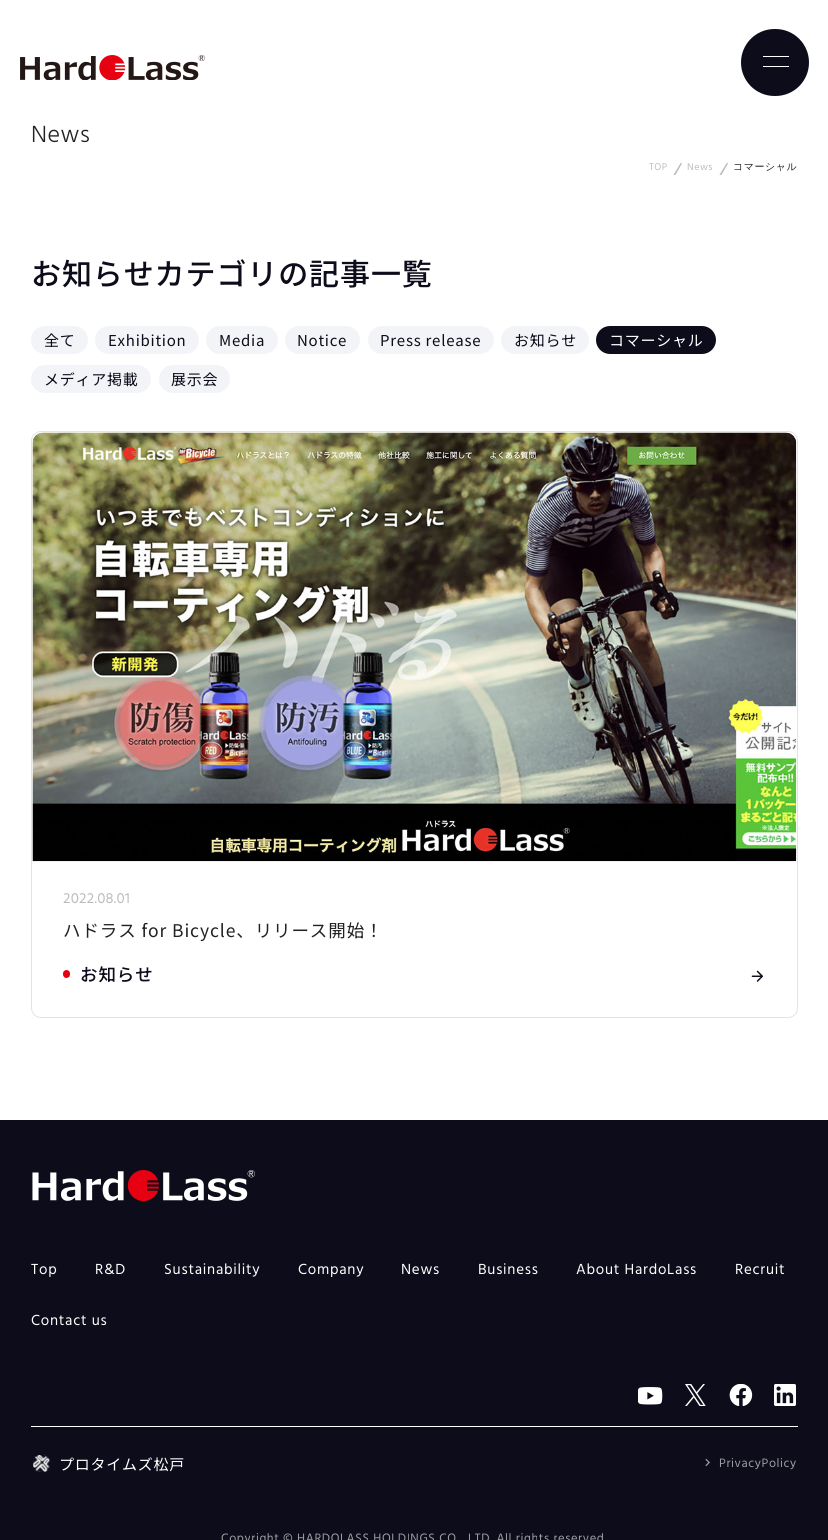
import math
import cairo


def use_color(cr, r, g, b):
  cr.set_source_rgb(r / 255, g / 255, b / 255)

def spaced_text(cr, x, y, s, letter, word):
  cr.move_to(x, y)
  for ch in s:
    cr.show_text(ch)
    cr.rel_move_to(letter + word * (ch == ' '), 0)

def box(cr, x, y, w, h, *color):
  use_color(cr, *color)
  cr.rectangle(x, y, w, h)
  cr.fill()

def round_rect(cr, x, y, w, h, r):
  cr.new_sub_path()
  for i, (u, v) in enumerate([(x + w - r, y + h - r), (x + r, y + h - r), (x + r, y + r), (x + w - r, y + r)]):
    cr.arc(u, v, r, i * math.pi / 2, (i + 1) * math.pi / 2)
  cr.close_path()

def picture(cr, path, x, y, w, h):
  cr.save()
  cr.set_source_surface(cairo.ImageSurface.create_from_png(path), x, y)
  cr.rectangle(x, y, w, h)
  cr.fill()
  cr.restore()

def draw(cr):
  use_color(cr, 255, 255, 255)
  cr.paint()
  picture(cr, "img_01.png", 20, 55, 185, 25)
  use_color(cr, 12, 12, 27)
  round_rect(cr, 741, 29, 68, 67, 33.5)
  cr.fill()
  box(cr, 763, 56, 26, 1, 255, 255, 255)
  box(cr, 763, 66, 26, 1, 255, 255, 255)
  cr.save()
  cr.rectangle(31, 160, 767, 15)
  cr.clip()
  use_color(cr, 185, 188, 191)
  cr.new_path()
  cr.move_to(681, 162.5)
  cr.line_to(682, 163.5)
  cr.line_to(674, 177.5)
  cr.line_to(672.5, 176.5)
  cr.close_path()
  cr.move_to(727, 162.5)
  cr.line_to(728, 163.5)
  cr.line_to(720, 177.5)
  cr.line_to(718.5, 176.5)
  cr.close_path()
  cr.fill()
  cr.restore()
  use_color(cr, 243, 244, 247)
  round_rect(cr, 31, 326, 57, 28, 14)
  cr.fill()
  round_rect(cr, 95, 326, 104, 28, 14)
  cr.fill()
  round_rect(cr, 206, 326, 72, 28, 14)
  cr.fill()
  round_rect(cr, 285, 326, 75, 28, 14)
  cr.fill()
  round_rect(cr, 368, 326, 126, 28, 14)
  cr.fill()
  round_rect(cr, 501, 326, 88, 28, 14)
  cr.fill()
  use_color(cr, 12, 12, 27)
  round_rect(cr, 596, 326, 120, 28, 14)
  cr.fill()
  use_color(cr, 243, 244, 247)
  round_rect(cr, 31, 365, 120, 28, 14)
  cr.fill()
  round_rect(cr, 159, 365, 71, 28, 14)
  cr.fill()
  round_rect(cr, 31.5, 431.5, 766, 586, 9.5)
  use_color(cr, 226, 227, 230)
  cr.set_line_width(1)
  cr.stroke()
  picture(cr, "img_02.png", 32, 432, 765, 430)
  use_color(cr, 230, 0, 18)
  round_rect(cr, 63, 970, 7, 8, 3.5)
  cr.fill()
  picture(cr, "img_03.png", 751, 970, 12, 12)
  box(cr, 0, 1120, 828, 420, 12, 12, 27)
  picture(cr, "img_04.png", 32, 1170, 223, 31)
  box(cr, 31, 1426, 767, 1, 255, 255, 255)
  picture(cr, "img_05.png", 638, 1387, 25, 18)
  picture(cr, "img_06.png", 685, 1384, 21, 22)
  picture(cr, "img_07.png", 729, 1384, 24, 22)
  picture(cr, "img_08.png", 774, 1384, 22, 22)
  picture(cr, "img_09.png", 33, 1454, 17, 18)
  picture(cr, "img_10.png", 705, 1458, 5, 9)
  cr.select_font_face("Hind Light")
  cr.set_font_size(24)
  use_color(cr, 34, 34, 34)
  spaced_text(cr, 31, 142, "News", 0.5, 0)
  cr.select_font_face("Hind")
  cr.set_font_size(10)
  use_color(cr, 185, 188, 191)
  spaced_text(cr, 649, 170, "TOP", 0.5, 0)
  spaced_text(cr, 687, 170, "News", 0.5, 0)
  cr.select_font_face("WenQuanYi Zen Hei Medium")
  use_color(cr, 34, 34, 34)
  spaced_text(cr, 733, 170, "コマーシャル", 0.5, 0)
  cr.select_font_face("Noto Sans JP Thin")
  cr.set_font_size(30)
  use_color(cr, 12, 12, 27)
  spaced_text(cr, 31, 285, "お知らせカテゴリの記事一覧", 0.9, 0)
  cr.select_font_face("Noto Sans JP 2 Thin")
  cr.set_font_size(15)
  spaced_text(cr, 44, 346, "全て", 0.75, 0)
  spaced_text(cr, 108, 346, "Exhibition", 0.75, 0)
  spaced_text(cr, 219, 346, "Media", 0.75, 0)
  spaced_text(cr, 297, 346, "Notice", 0.75, 0)
  spaced_text(cr, 380, 346, "Press release", 0.75, 0)
  spaced_text(cr, 514, 346, "お知らせ", 0.75, 0)
  use_color(cr, 255, 255, 255)
  spaced_text(cr, 609, 346, "コマーシャル", 0.75, 0)
  use_color(cr, 12, 12, 27)
  spaced_text(cr, 44, 385, "メディア掲載", 0.75, 0)
  spaced_text(cr, 171, 385, "展示会", 0.75, 0)
  cr.select_font_face("Hind")
  use_color(cr, 185, 188, 191)
  spaced_text(cr, 63, 903, "2022.08.01", 0.25, 0)
  cr.select_font_face("Noto Sans JP 2 Thin")
  cr.set_font_size(17.5)
  use_color(cr, 34, 34, 34)
  spaced_text(cr, 63, 937, "ハドラス for Bicycle、リリース開始！", 0.9, 0)
  cr.select_font_face("Noto Sans JP Thin")
  use_color(cr, 12, 12, 27)
  spaced_text(cr, 80, 981, "お知らせ", 0.9, 0)
  cr.select_font_face("Hind")
  cr.set_font_size(15)
  use_color(cr, 255, 255, 255)
  spaced_text(cr, 31, 1274, "Top", 0.75, 0)
  spaced_text(cr, 95, 1274, "R&D", 0.75, 0)
  spaced_text(cr, 164, 1274, "Sustainability", 0.75, 0)
  spaced_text(cr, 298, 1274, "Company", 0.75, 0)
  spaced_text(cr, 401, 1274, "News", 0.75, 0)
  spaced_text(cr, 478, 1274, "Business", 0.75, 0)
  spaced_text(cr, 576, 1274, "About HardoLass", 0.75, 0)
  spaced_text(cr, 735, 1274, "Recruit", 0.75, 0)
  spaced_text(cr, 31, 1325, "Contact us", 0.75, 0)
  cr.select_font_face("Noto Sans JP 2 Thin")
  spaced_text(cr, 59, 1470, "プロタイムズ松戸", 0.75, 0)
  cr.select_font_face("Hind")
  cr.set_font_size(12.5)
  use_color(cr, 158, 158, 164)
  spaced_text(cr, 719, 1467, "PrivacyPolicy", 0.6, 0)
  spaced_text(cr, 221, 1542, "Copyright © HARDOLASS HOLDINGS CO", 0.6, 0)
  spaced_text(cr, 468, 1542, "LTD. All rights reserved", 0.6, 0)


surface = cairo.ImageSurface(cairo.FORMAT_RGB24, 828, 1540)
cr = cairo.Context(surface)
options = cairo.FontOptions()
options.set_hint_metrics(cairo.HINT_METRICS_OFF)
options.set_hint_style(cairo.HINT_STYLE_NONE)
cr.set_font_options(options)
cr.set_miter_limit(4)
draw(cr)
surface.write_to_png("out.png")
